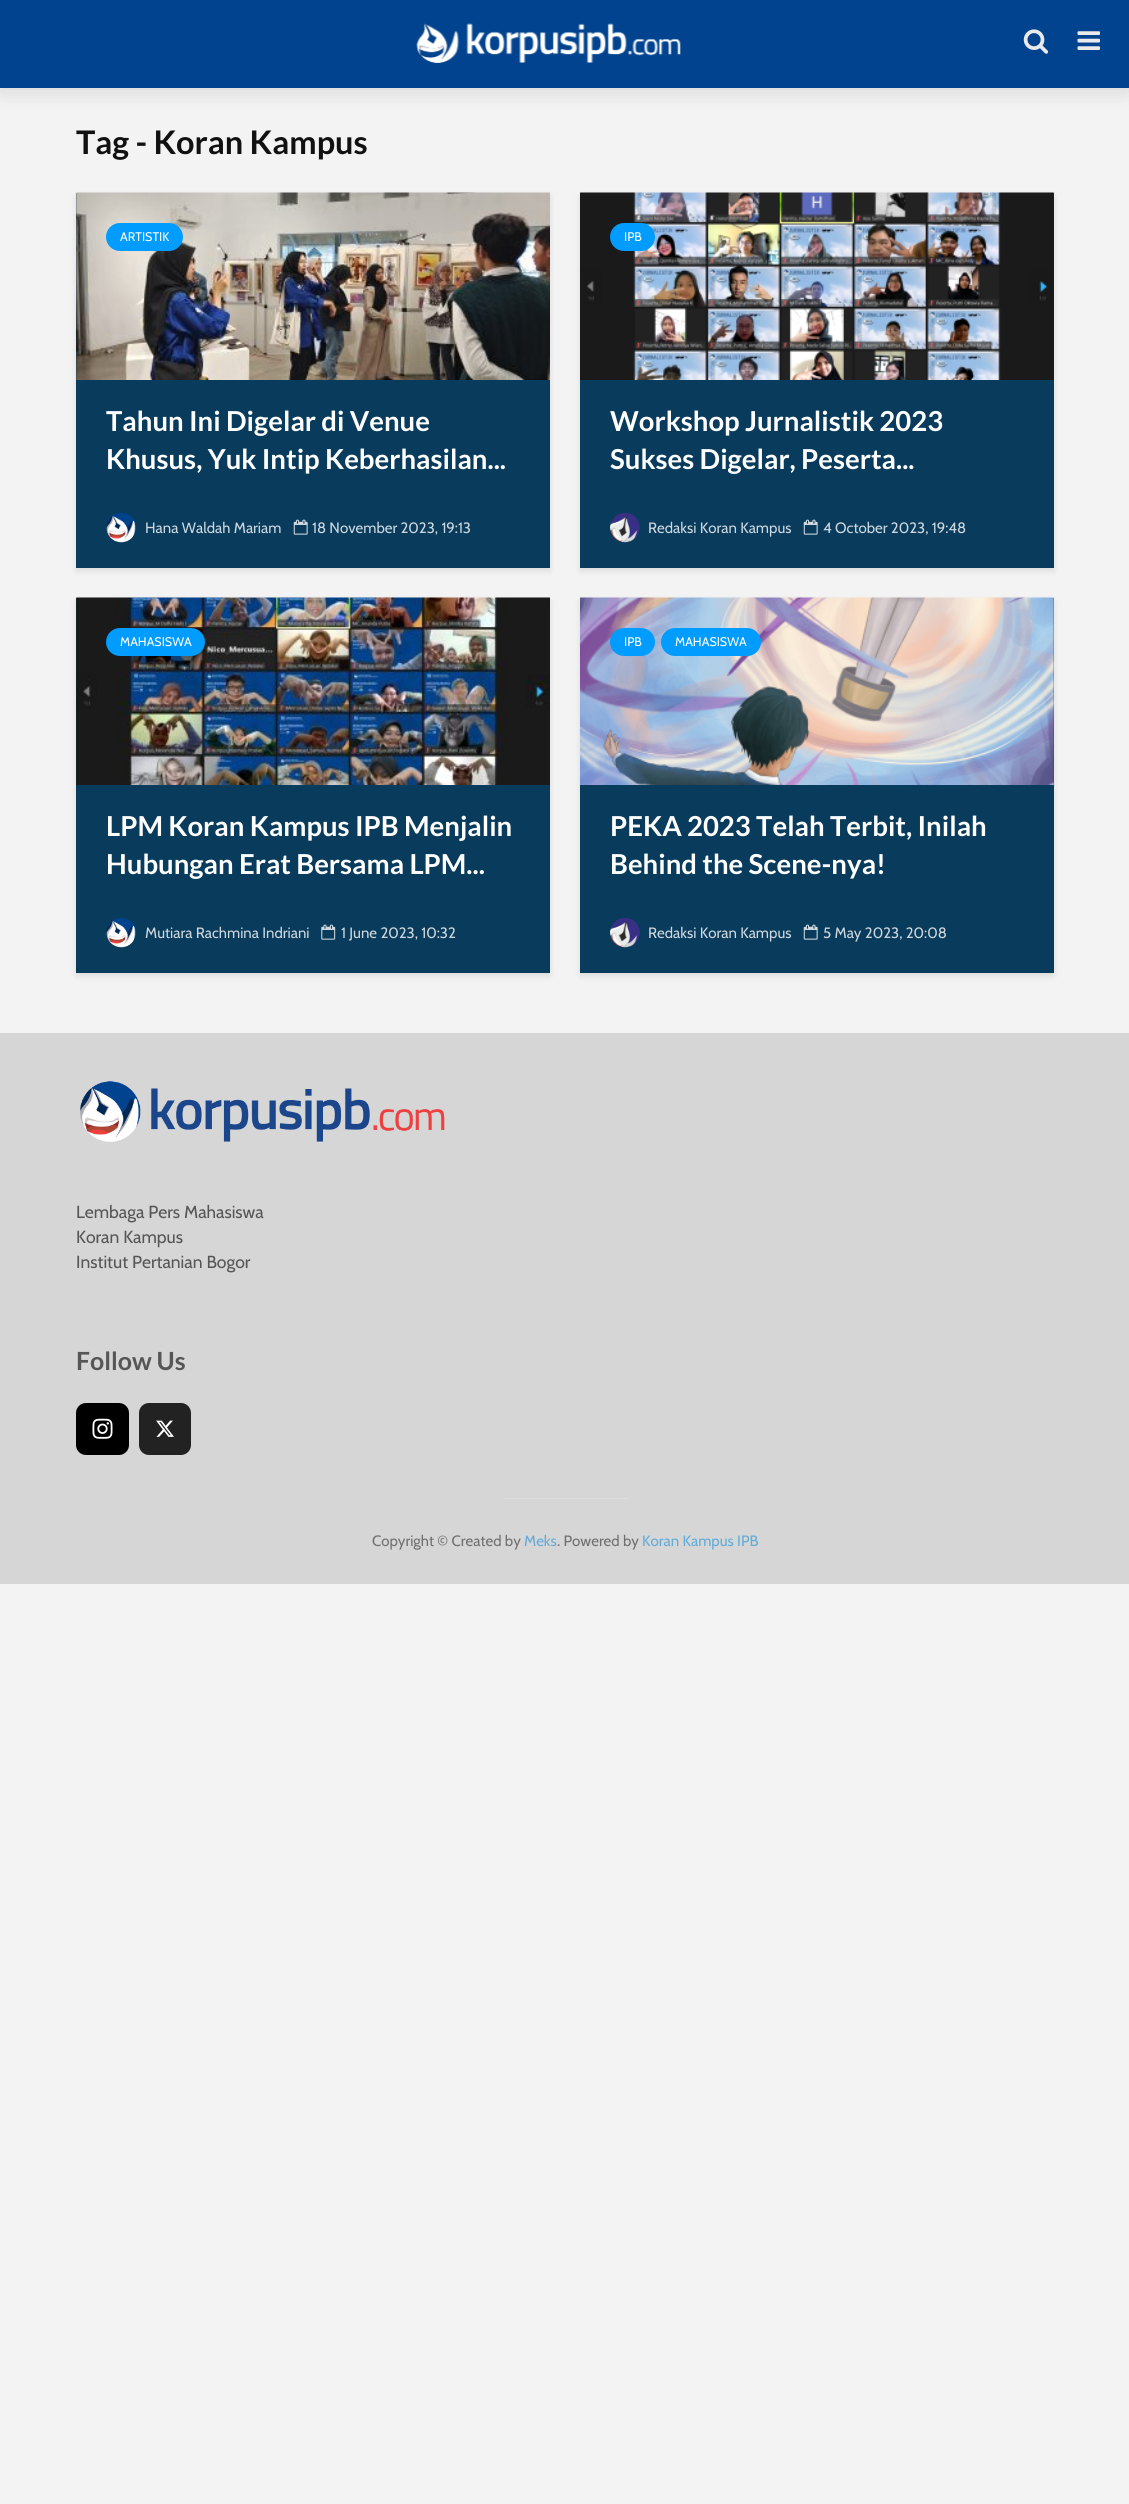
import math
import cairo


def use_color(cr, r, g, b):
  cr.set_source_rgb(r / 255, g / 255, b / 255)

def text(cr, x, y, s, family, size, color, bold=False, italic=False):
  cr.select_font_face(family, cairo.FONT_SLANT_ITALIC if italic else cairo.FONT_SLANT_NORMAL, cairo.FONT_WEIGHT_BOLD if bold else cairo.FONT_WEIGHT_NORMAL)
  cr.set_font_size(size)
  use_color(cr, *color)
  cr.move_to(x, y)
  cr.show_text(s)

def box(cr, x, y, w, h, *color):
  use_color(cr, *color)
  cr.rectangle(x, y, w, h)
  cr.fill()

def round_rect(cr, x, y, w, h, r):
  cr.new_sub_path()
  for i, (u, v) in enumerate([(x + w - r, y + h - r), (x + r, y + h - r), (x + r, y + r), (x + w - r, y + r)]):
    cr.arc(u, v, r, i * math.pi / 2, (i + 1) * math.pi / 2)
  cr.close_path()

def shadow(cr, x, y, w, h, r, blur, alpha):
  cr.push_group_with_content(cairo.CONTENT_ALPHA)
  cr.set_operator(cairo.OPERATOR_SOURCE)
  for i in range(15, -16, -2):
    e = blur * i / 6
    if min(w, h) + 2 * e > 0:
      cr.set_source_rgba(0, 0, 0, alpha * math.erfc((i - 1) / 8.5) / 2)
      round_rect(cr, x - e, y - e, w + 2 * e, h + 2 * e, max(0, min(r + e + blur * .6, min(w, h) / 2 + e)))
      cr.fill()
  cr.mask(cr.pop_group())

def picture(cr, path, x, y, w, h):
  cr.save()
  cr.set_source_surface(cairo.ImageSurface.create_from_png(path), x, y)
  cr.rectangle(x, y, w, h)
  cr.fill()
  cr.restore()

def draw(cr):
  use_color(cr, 243, 243, 243)
  cr.paint()
  use_color(cr, 0, 0, 0)
  shadow(cr, 0, 0, 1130, 88, 0, 12.5, 0.15)
  box(cr, 0, 0, 1129, 88, 1, 67, 142)
  picture(cr, "img_01.png", 415, 23, 266, 40)
  picture(cr, "img_02.png", 1023, 29, 26, 25)
  picture(cr, "img_03.png", 1077, 31, 23, 19)
  use_color(cr, 0, 1, 1)
  shadow(cr, 76, 196, 474, 375, 0, 3, 0.1)
  box(cr, 76, 193, 474, 375, 8, 59, 92)
  picture(cr, "img_04.png", 76, 192, 474, 188)
  use_color(cr, 0, 156, 255)
  round_rect(cr, 106, 223, 77, 28, 14)
  cr.fill()
  picture(cr, "img_05.png", 106, 512, 30, 31)
  picture(cr, "img_06.png", 293, 519, 15, 16)
  use_color(cr, 0, 1, 1)
  shadow(cr, 580, 196, 474, 375, 0, 3, 0.1)
  box(cr, 580, 193, 474, 375, 8, 59, 92)
  picture(cr, "img_07.png", 580, 192, 474, 188)
  use_color(cr, 0, 156, 255)
  round_rect(cr, 610, 223, 45, 28, 14)
  cr.fill()
  picture(cr, "img_08.png", 610, 512, 30, 31)
  picture(cr, "img_06.png", 803, 519, 15, 16)
  use_color(cr, 0, 1, 1)
  shadow(cr, 76, 601, 474, 375, 0, 3, 0.1)
  box(cr, 76, 598, 474, 375, 8, 59, 92)
  picture(cr, "img_09.png", 76, 597, 474, 188)
  use_color(cr, 0, 156, 255)
  round_rect(cr, 106, 628, 99, 28, 14)
  cr.fill()
  picture(cr, "img_05.png", 106, 917, 30, 31)
  picture(cr, "img_10.png", 321, 924, 15, 16)
  use_color(cr, 0, 1, 1)
  shadow(cr, 580, 601, 474, 375, 0, 3, 0.1)
  box(cr, 580, 598, 474, 375, 8, 59, 92)
  picture(cr, "img_11.png", 580, 597, 474, 188)
  use_color(cr, 0, 156, 255)
  round_rect(cr, 610, 628, 45, 28, 14)
  cr.fill()
  round_rect(cr, 661, 628, 100, 28, 14)
  cr.fill()
  picture(cr, "img_12.png", 610, 917, 30, 31)
  picture(cr, "img_06.png", 803, 924, 15, 16)
  box(cr, 0, 1033, 1129, 551, 214, 214, 214)
  picture(cr, "img_13.png", 80, 1081, 365, 61)
  use_color(cr, 0, 0, 0)
  round_rect(cr, 76, 1403, 53, 52, 10)
  cr.fill()
  picture(cr, "img_14.png", 92, 1418, 21, 21)
  use_color(cr, 34, 34, 34)
  round_rect(cr, 139, 1403, 52, 52, 10)
  cr.fill()
  picture(cr, "img_15.png", 156, 1420, 18, 17)
  box(cr, 503, 1498, 125, 1, 222, 222, 222)
  text(cr, 76, 154, "Tag - Koran Kampus", "Lato", 32.5, (17, 17, 17), bold=True)
  text(cr, 120, 241, "ARTISTIK", "Cabin", 12.5, (255, 255, 255))
  text(cr, 106, 431, "Tahun Ini Digelar di Venue", "Lato", 27.5, (255, 255, 255), bold=True)
  text(cr, 106, 469, "Khusus, Yuk Intip Keberhasilan...", "Lato", 27.5, (255, 255, 255), bold=True)
  text(cr, 145, 533, "Hana Waldah Mariam", "Cabin", 15, (206, 216, 222))
  text(cr, 312, 533, "18 November 2023, 19:13", "Cabin", 15, (206, 216, 222))
  text(cr, 624, 241, "IPB", "Cabin", 12.5, (255, 255, 255))
  text(cr, 610, 431, "Workshop Jurnalistik 2023", "Lato", 27.5, (255, 255, 255), bold=True)
  text(cr, 610, 469, "Sukses Digelar, Peserta...", "Lato", 27.5, (255, 255, 255), bold=True)
  text(cr, 648, 533, "Redaksi Koran Kampus", "Cabin", 15, (206, 216, 222))
  text(cr, 823, 533, "4 October 2023, 19:48", "Cabin", 15, (206, 216, 222))
  text(cr, 120, 646, "MAHASISWA", "Cabin", 12.5, (255, 255, 255))
  text(cr, 106, 836, "LPM Koran Kampus IPB Menjalin", "Lato", 27.5, (255, 255, 255), bold=True)
  text(cr, 106, 874, "Hubungan Erat Bersama LPM...", "Lato", 27.5, (255, 255, 255), bold=True)
  text(cr, 145, 938, "Mutiara Rachmina Indriani", "Cabin", 15, (206, 216, 222))
  text(cr, 341, 938, "1 June 2023, 10:32", "Cabin", 15, (206, 216, 222))
  text(cr, 624, 646, "IPB", "Cabin", 12.5, (255, 255, 255))
  text(cr, 675, 646, "MAHASISWA", "Cabin", 12.5, (255, 255, 255))
  text(cr, 610, 836, "PEKA 2023 Telah Terbit, Inilah", "Lato", 27.5, (255, 255, 255), bold=True)
  text(cr, 610, 874, "Behind the Scene-nya!", "Lato", 27.5, (255, 255, 255), bold=True)
  text(cr, 648, 938, "Redaksi Koran Kampus", "Cabin", 15, (206, 216, 222))
  text(cr, 823, 938, "5 May 2023, 20:08", "Cabin", 15, (206, 216, 222))
  text(cr, 76, 1218, "Lembaga Pers Mahasiswa", "Cabin", 17.5, (86, 86, 86))
  text(cr, 76, 1243, "Koran Kampus", "Cabin", 17.5, (86, 86, 86))
  text(cr, 76, 1268, "Institut Pertanian Bogor", "Cabin", 17.5, (86, 86, 86))
  text(cr, 76, 1370, "Follow Us", "Lato", 25, (86, 86, 86), bold=True)
  text(cr, 372, 1546, "Copyright © Created by", "Cabin", 15, (112, 112, 112))
  text(cr, 524, 1546, "Meks", "Cabin", 15, (99, 172, 216))
  text(cr, 557, 1546, ". Powered by", "Cabin", 15, (112, 112, 112))
  text(cr, 642, 1546, "Koran Kampus IPB", "Cabin", 15, (99, 172, 216))


surface = cairo.ImageSurface(cairo.FORMAT_RGB24, 1129, 2504)
cr = cairo.Context(surface)
options = cairo.FontOptions()
options.set_hint_metrics(cairo.HINT_METRICS_OFF)
options.set_hint_style(cairo.HINT_STYLE_NONE)
cr.set_font_options(options)
cr.set_miter_limit(4)
draw(cr)
surface.write_to_png("out.png")
